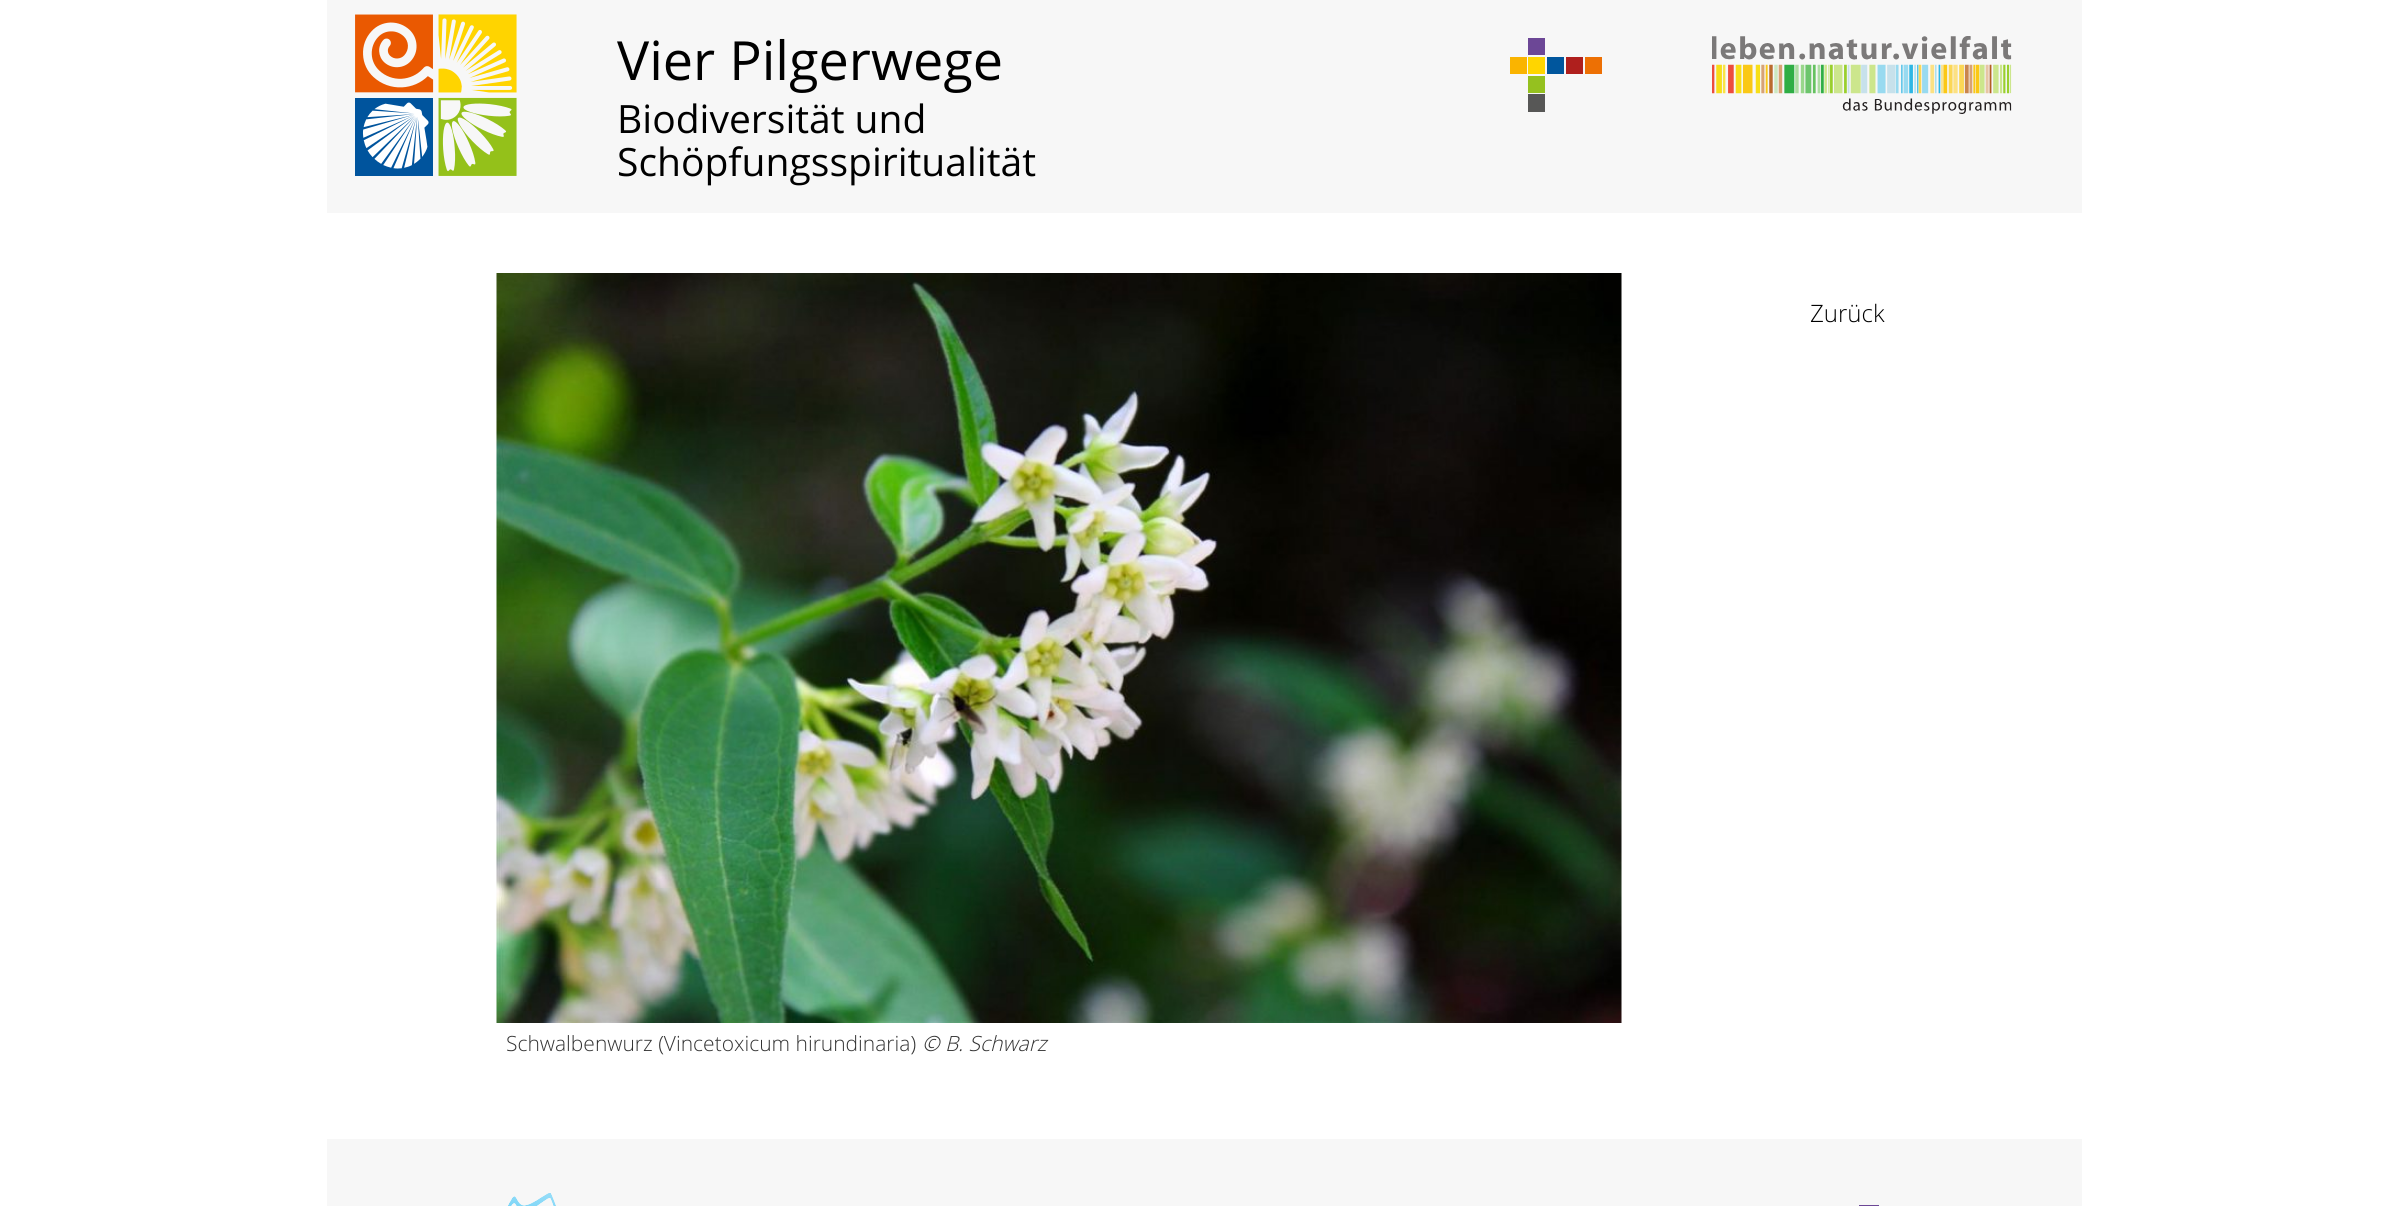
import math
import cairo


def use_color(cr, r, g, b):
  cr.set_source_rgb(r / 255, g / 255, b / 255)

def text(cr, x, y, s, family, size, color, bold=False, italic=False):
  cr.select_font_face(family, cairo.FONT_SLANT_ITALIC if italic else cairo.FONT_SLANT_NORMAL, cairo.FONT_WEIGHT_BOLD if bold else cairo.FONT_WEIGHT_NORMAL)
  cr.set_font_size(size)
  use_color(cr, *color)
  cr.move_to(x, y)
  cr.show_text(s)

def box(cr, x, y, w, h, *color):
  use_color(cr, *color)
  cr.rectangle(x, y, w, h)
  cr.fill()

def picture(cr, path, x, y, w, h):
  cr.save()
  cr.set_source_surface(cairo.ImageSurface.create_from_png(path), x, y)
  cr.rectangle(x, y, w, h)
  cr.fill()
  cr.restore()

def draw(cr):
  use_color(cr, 255, 255, 255)
  cr.paint()
  box(cr, 327, 0, 1755, 213, 247, 247, 247)
  picture(cr, "img_01.png", 355, 14, 162, 162)
  box(cr, 1528, 38, 17, 17, 108, 71, 150)
  box(cr, 1510, 57, 17, 17, 250, 180, 0)
  box(cr, 1528, 57, 17, 17, 255, 213, 0)
  box(cr, 1547, 57, 17, 17, 0, 86, 157)
  box(cr, 1566, 57, 17, 17, 175, 31, 29)
  box(cr, 1585, 57, 17, 17, 237, 112, 4)
  box(cr, 1528, 76, 17, 17, 149, 193, 31)
  box(cr, 1528, 94, 17, 18, 87, 87, 86)
  picture(cr, "img_02.png", 1712, 36, 300, 78)
  picture(cr, "img_03.png", 496, 273, 1126, 750)
  box(cr, 327, 1139, 1755, 67, 247, 247, 247)
  picture(cr, "img_04.png", 508, 1193, 48, 13)
  box(cr, 1859, 1205, 20, 1, 108, 71, 150)
  text(cr, 617, 80, "Vier Pilgerwege", "Open Sans", 54, (0, 0, 0))
  text(cr, 617, 133, "Biodiversität und", "Open Sans", 39, (0, 0, 0))
  text(cr, 617, 176, "Schöpfungsspiritualität", "Open Sans", 39, (0, 0, 0))
  text(cr, 1810, 322, "Zurück", "Open Sans Light", 24, (0, 0, 0))
  text(cr, 506, 1051, "Schwalbenwurz (Vincetoxicum hirundinaria)", "Open Sans Light", 21, (51, 51, 51))
  text(cr, 922, 1051, "© B. Schwarz", "Open Sans Light", 21, (51, 51, 51), italic=True)


surface = cairo.ImageSurface(cairo.FORMAT_RGB24, 2408, 1206)
cr = cairo.Context(surface)
options = cairo.FontOptions()
options.set_hint_metrics(cairo.HINT_METRICS_OFF)
options.set_hint_style(cairo.HINT_STYLE_NONE)
cr.set_font_options(options)
cr.set_miter_limit(4)
draw(cr)
surface.write_to_png("out.png")
